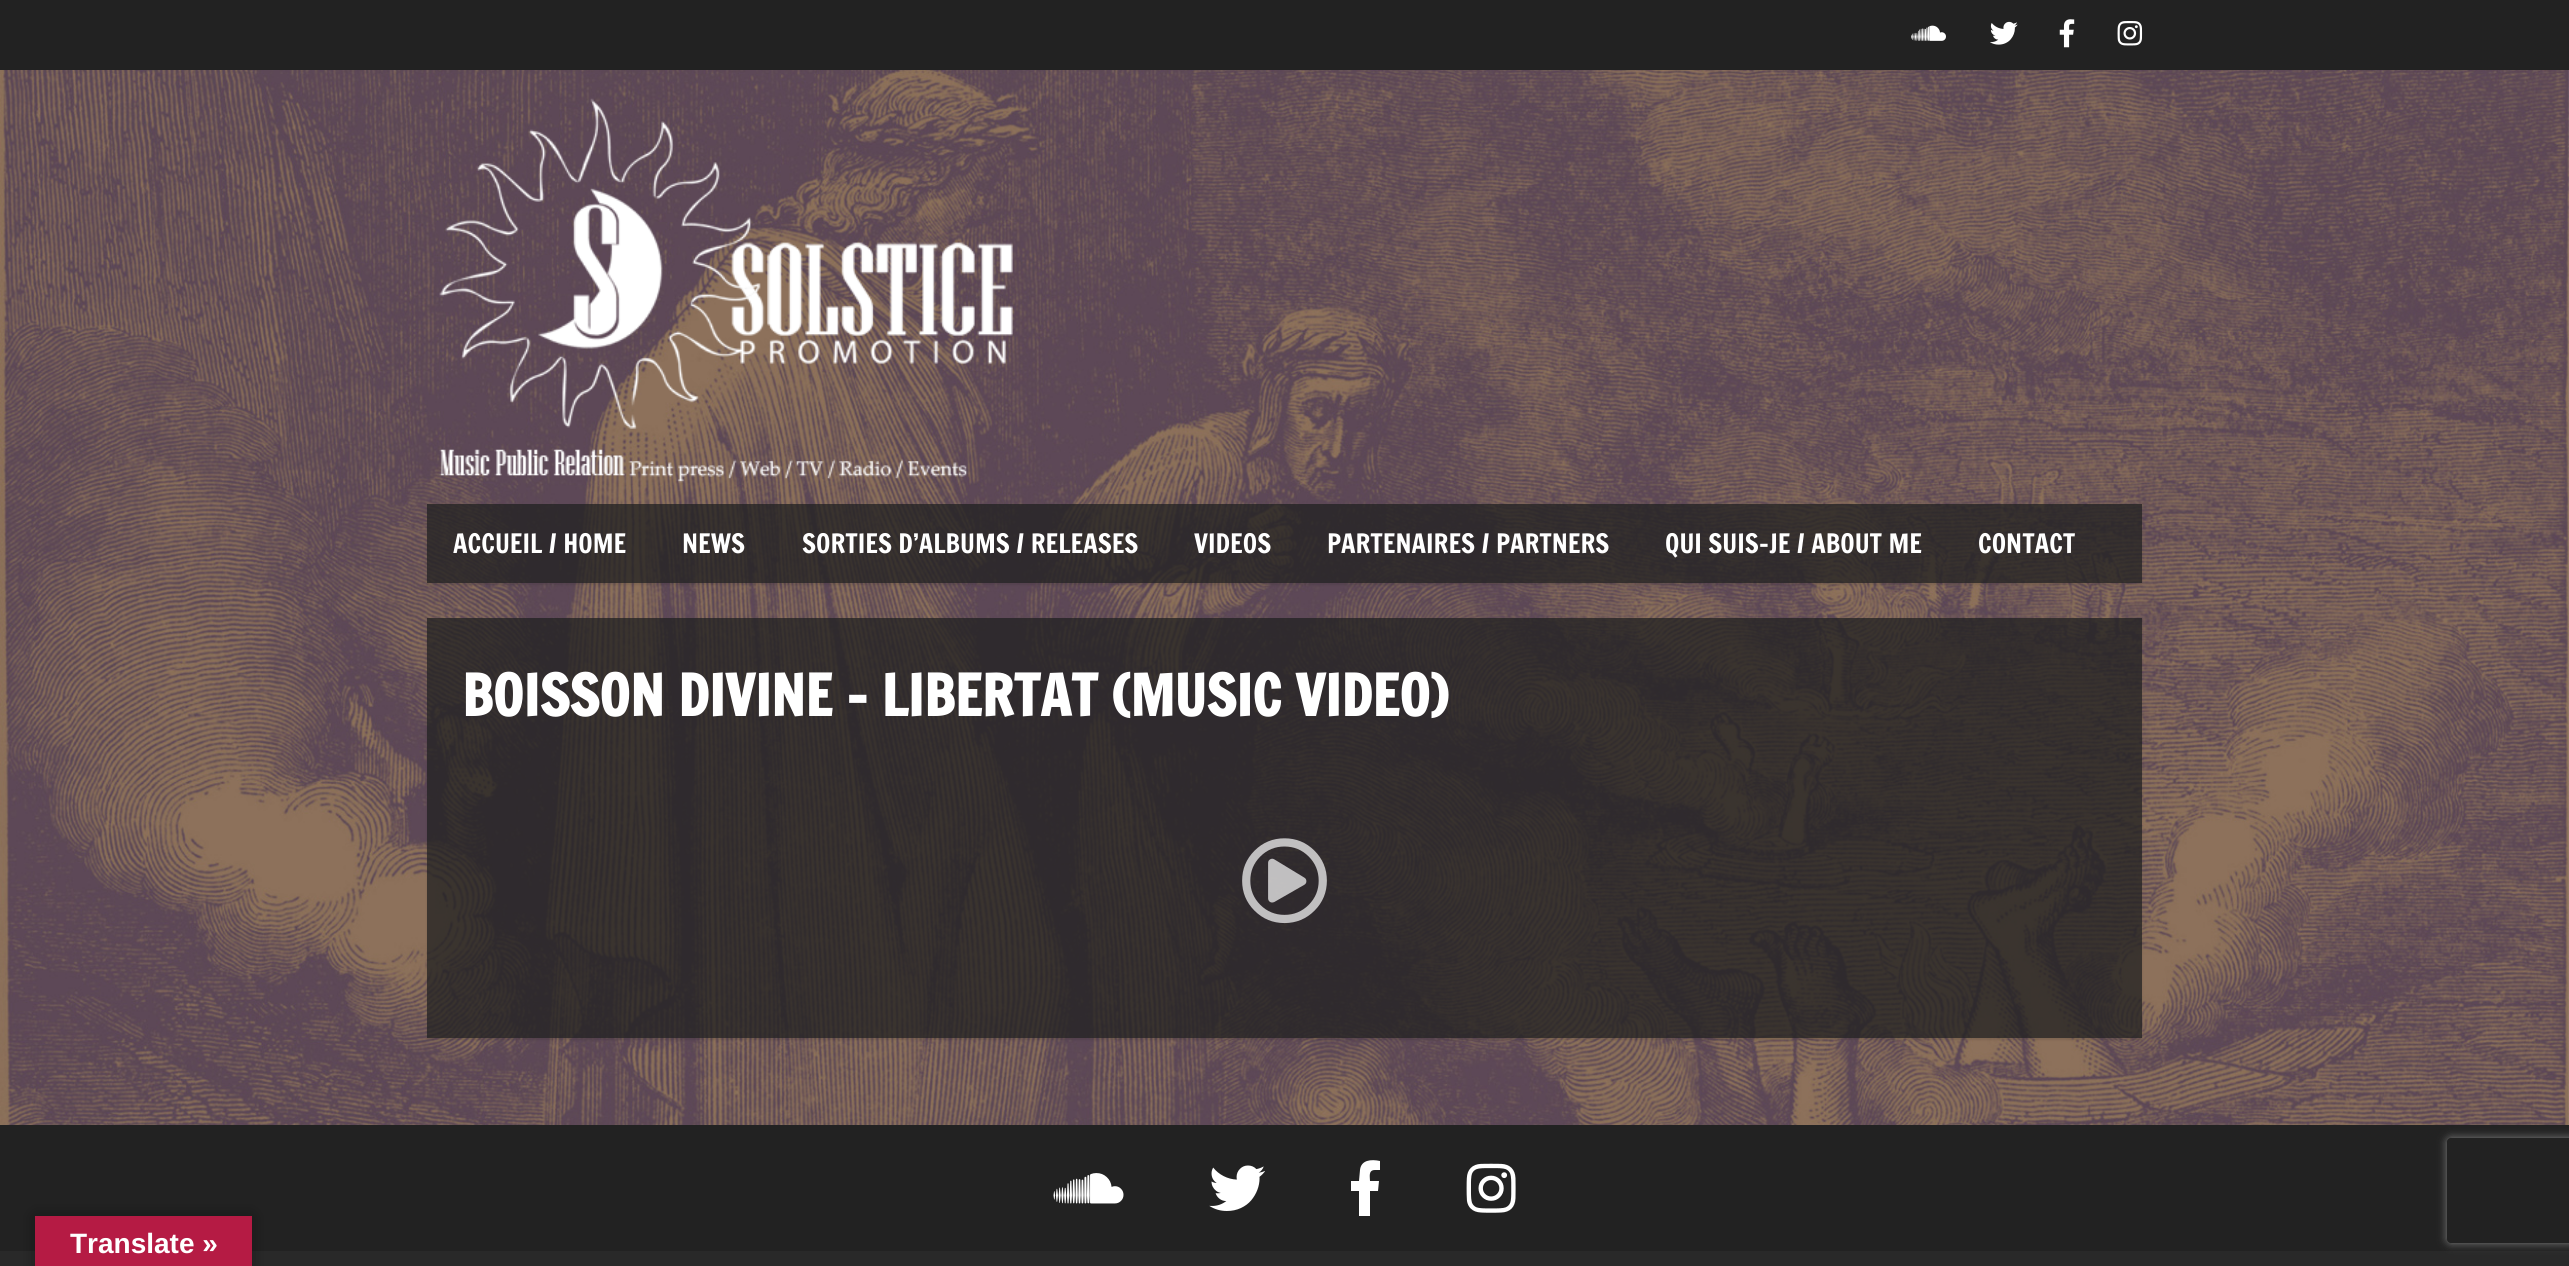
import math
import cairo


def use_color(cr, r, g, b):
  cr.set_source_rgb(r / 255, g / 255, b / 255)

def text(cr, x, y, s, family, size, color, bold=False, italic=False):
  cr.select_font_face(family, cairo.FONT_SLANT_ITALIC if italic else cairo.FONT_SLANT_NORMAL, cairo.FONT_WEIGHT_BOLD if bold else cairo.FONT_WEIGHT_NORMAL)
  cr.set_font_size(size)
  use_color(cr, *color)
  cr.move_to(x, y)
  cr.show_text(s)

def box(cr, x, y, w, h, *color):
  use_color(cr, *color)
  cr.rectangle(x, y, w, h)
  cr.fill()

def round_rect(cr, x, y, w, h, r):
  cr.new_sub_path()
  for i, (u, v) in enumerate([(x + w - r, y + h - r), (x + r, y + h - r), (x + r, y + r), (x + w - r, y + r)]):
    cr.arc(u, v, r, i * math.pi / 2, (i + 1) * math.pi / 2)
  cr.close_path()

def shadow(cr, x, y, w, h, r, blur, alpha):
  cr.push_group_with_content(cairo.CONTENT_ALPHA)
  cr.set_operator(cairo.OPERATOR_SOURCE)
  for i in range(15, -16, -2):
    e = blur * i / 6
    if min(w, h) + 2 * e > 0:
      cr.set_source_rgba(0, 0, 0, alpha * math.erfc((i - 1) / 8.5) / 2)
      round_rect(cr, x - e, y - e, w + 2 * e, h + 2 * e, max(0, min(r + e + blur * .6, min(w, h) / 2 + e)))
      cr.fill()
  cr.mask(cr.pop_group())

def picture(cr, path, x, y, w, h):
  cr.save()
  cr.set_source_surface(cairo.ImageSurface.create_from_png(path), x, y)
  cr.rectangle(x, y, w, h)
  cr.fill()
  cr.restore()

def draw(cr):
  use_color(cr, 255, 255, 255)
  cr.paint()
  picture(cr, "img_01.png", 0, 70, 2569, 1055)
  box(cr, 0, 0, 2569, 70, 34, 34, 34)
  picture(cr, "img_02.png", 1911, 25, 35, 16)
  picture(cr, "img_03.png", 1990, 21, 28, 24)
  picture(cr, "img_04.png", 2059, 19, 16, 29)
  picture(cr, "img_05.png", 2117, 21, 26, 25)
  picture(cr, "img_06.png", 439, 98, 574, 385)
  cr.save()
  cr.set_fill_rule(cairo.FILL_RULE_EVEN_ODD)
  cr.new_path()
  cr.move_to(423, 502)
  cr.line_to(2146, 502)
  cr.line_to(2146, 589)
  cr.line_to(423, 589)
  cr.close_path()
  cr.move_to(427, 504)
  cr.line_to(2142, 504)
  cr.line_to(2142, 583)
  cr.line_to(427, 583)
  cr.close_path()
  cr.clip()
  use_color(cr, 0, 0, 0)
  shadow(cr, 427, 506, 1715, 79, 0, 1, 0.1)
  cr.restore()
  cr.set_source_rgba(0.133, 0.133, 0.133, 0.76)
  cr.rectangle(427, 504, 1715, 79)
  cr.fill()
  cr.save()
  cr.set_fill_rule(cairo.FILL_RULE_EVEN_ODD)
  cr.new_path()
  cr.move_to(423, 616)
  cr.line_to(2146, 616)
  cr.line_to(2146, 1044)
  cr.line_to(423, 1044)
  cr.close_path()
  cr.move_to(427, 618)
  cr.line_to(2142, 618)
  cr.line_to(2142, 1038)
  cr.line_to(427, 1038)
  cr.close_path()
  cr.clip()
  use_color(cr, 0, 0, 0)
  shadow(cr, 427, 620, 1715, 420, 0, 1, 0.1)
  cr.restore()
  cr.rectangle(427, 618, 1715, 420)
  cr.fill()
  picture(cr, "img_07.png", 1242, 838, 85, 86)
  box(cr, 0, 1125, 2569, 126, 34, 34, 34)
  picture(cr, "img_08.png", 1053, 1173, 71, 31)
  picture(cr, "img_09.png", 1209, 1165, 56, 46)
  use_color(cr, 255, 255, 255)
  cr.new_path()
  cr.move_to(1375, 1170)
  cr.curve_to(1368, 1170, 1370, 1177, 1370, 1181)
  cr.line_to(1379, 1181)
  cr.line_to(1378, 1191)
  cr.line_to(1370, 1191)
  cr.line_to(1370, 1216)
  cr.line_to(1359, 1216)
  cr.line_to(1359, 1191)
  cr.line_to(1351, 1191)
  cr.line_to(1351, 1181)
  cr.line_to(1359, 1181)
  cr.line_to(1360, 1170)
  cr.curve_to(1361, 1160, 1371, 1159, 1380, 1161)
  cr.line_to(1380, 1170)
  cr.close_path()
  cr.fill()
  picture(cr, "img_10.png", 1466, 1163, 50, 50)
  box(cr, 0, 1251, 2569, 15, 41, 41, 41)
  use_color(cr, 0, 0, 0)
  shadow(cr, 35, 1216, 217, 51, 0, 8, 0.3)
  box(cr, 35, 1216, 217, 50, 181, 27, 68)
  cr.save()
  cr.set_fill_rule(cairo.FILL_RULE_EVEN_ODD)
  cr.new_path()
  cr.move_to(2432, 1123)
  cr.line_to(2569, 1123)
  cr.line_to(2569, 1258)
  cr.line_to(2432, 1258)
  cr.close_path()
  cr.move_to(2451, 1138)
  cr.line_to(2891, 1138)
  cr.curve_to(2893, 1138, 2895, 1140, 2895, 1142)
  cr.line_to(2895, 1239)
  cr.curve_to(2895, 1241, 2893, 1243, 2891, 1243)
  cr.line_to(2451, 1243)
  cr.curve_to(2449, 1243, 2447, 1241, 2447, 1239)
  cr.line_to(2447, 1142)
  cr.curve_to(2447, 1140, 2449, 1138, 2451, 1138)
  cr.close_path()
  cr.clip()
  use_color(cr, 128, 128, 128)
  shadow(cr, 2447, 1138, 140, 105, 4, 4.5, 1)
  cr.restore()
  text(cr, 453, 553, "ACCUEIL / HOME", "Francois One", 26.25, (255, 255, 255))
  text(cr, 682, 553, "NEWS", "Francois One", 26.25, (255, 255, 255))
  text(cr, 802, 553, "SORTIES D’ALBUMS / RELEASES", "Francois One", 26.25, (255, 255, 255))
  text(cr, 1194, 553, "VIDEOS", "Francois One", 26.25, (255, 255, 255))
  text(cr, 1327, 553, "PARTENAIRES / PARTNERS", "Francois One", 26.25, (255, 255, 255))
  text(cr, 1665, 553, "QUI SUIS-JE / ABOUT ME", "Francois One", 26.25, (255, 255, 255))
  text(cr, 1978, 553, "CONTACT", "Francois One", 26.25, (255, 255, 255))
  text(cr, 462, 716, "BOISSON DIVINE – LIBERTAT (MUSIC VIDEO)", "Francois One", 56, (255, 255, 255), bold=True)
  text(cr, 70, 1253, "Translate »", "Liberation Sans", 28, (255, 255, 255), bold=True)


surface = cairo.ImageSurface(cairo.FORMAT_RGB24, 2569, 1266)
cr = cairo.Context(surface)
options = cairo.FontOptions()
options.set_hint_metrics(cairo.HINT_METRICS_OFF)
options.set_hint_style(cairo.HINT_STYLE_NONE)
cr.set_font_options(options)
cr.set_miter_limit(4)
draw(cr)
surface.write_to_png("out.png")
